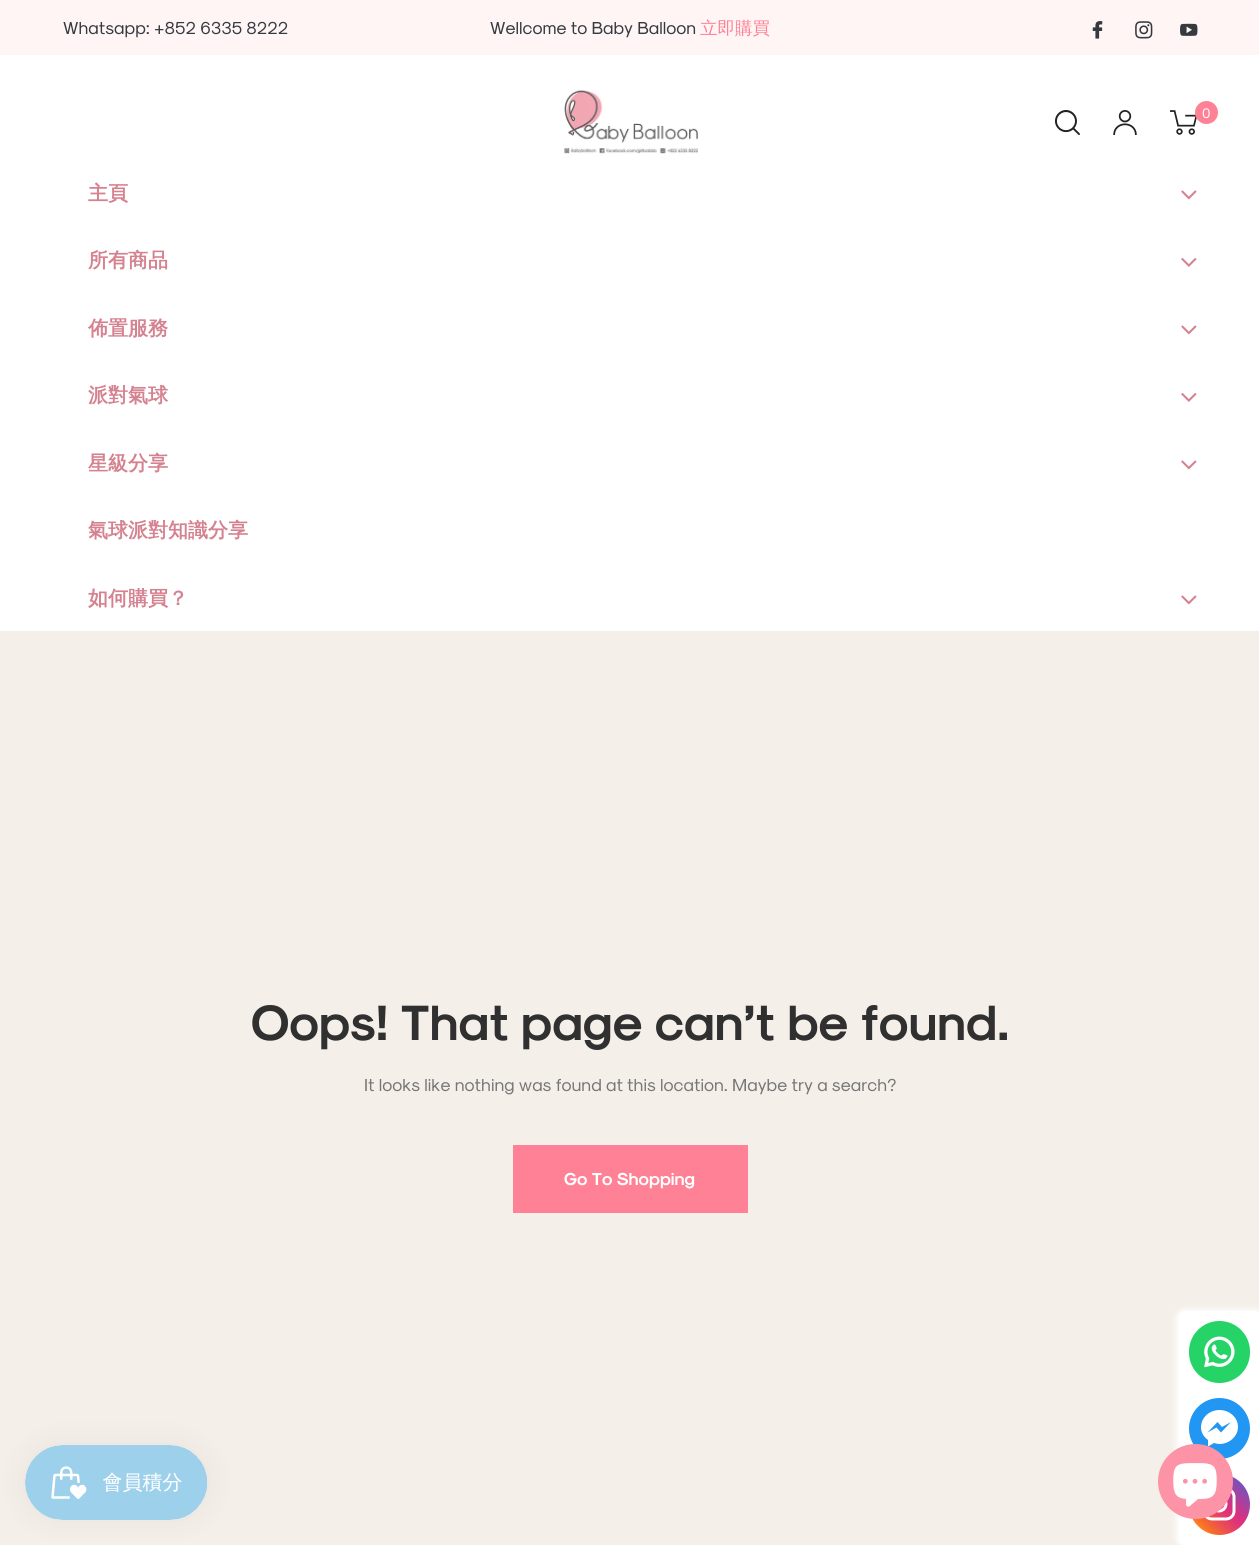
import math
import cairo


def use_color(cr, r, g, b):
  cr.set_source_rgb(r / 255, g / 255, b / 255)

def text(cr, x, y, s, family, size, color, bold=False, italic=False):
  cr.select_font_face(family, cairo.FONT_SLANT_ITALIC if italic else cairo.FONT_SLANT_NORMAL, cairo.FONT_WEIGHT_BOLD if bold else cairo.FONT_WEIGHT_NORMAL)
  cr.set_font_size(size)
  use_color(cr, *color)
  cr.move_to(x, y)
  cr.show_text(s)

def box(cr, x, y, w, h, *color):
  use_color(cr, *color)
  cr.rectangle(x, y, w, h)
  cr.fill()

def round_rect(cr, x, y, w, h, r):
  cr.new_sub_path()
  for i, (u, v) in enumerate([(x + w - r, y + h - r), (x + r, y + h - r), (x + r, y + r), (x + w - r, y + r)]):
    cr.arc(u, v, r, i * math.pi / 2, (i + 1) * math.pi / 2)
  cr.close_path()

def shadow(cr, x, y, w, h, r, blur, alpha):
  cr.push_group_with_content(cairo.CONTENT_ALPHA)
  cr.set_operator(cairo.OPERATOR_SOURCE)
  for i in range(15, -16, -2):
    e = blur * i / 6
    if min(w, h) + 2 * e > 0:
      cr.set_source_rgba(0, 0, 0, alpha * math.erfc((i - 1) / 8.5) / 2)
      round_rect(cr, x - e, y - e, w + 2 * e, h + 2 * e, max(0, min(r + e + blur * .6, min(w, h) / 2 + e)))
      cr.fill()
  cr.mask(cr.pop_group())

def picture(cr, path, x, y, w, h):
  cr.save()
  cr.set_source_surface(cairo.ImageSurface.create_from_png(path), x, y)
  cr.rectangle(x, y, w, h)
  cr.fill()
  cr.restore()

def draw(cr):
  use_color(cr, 255, 255, 255)
  cr.paint()
  box(cr, 0, 0, 1259, 55, 255, 245, 245)
  picture(cr, "img_01.png", 1092, 21, 11, 18)
  picture(cr, "img_02.png", 1135, 21, 18, 18)
  picture(cr, "img_03.png", 1180, 23, 18, 13)
  picture(cr, "img_04.png", 564, 89, 134, 65)
  picture(cr, "img_05.png", 1055, 110, 25, 25)
  picture(cr, "img_06.png", 1113, 110, 24, 25)
  picture(cr, "img_07.png", 1170, 110, 27, 25)
  use_color(cr, 255, 129, 149)
  cr.arc(1206.5, 112.5, 11.5, 0, 2 * math.pi)
  cr.fill()
  picture(cr, "img_08.png", 1181, 190, 16, 10)
  picture(cr, "img_09.png", 1181, 258, 16, 9)
  picture(cr, "img_08.png", 1181, 325, 16, 10)
  picture(cr, "img_09.png", 1181, 393, 16, 9)
  picture(cr, "img_08.png", 1181, 460, 16, 10)
  picture(cr, "img_08.png", 1181, 595, 16, 10)
  box(cr, 0, 631, 1259, 914, 244, 239, 233)
  box(cr, 513, 1145, 235, 68, 255, 129, 149)
  use_color(cr, 0, 0, 0)
  shadow(cr, 25, 1445, 183, 75, 37.5, 15.5, 0.05)
  picture(cr, "img_10.png", 25, 1445, 183, 75)
  use_color(cr, 255, 255, 255)
  shadow(cr, 1176, 1309, 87, 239, 9, 2.5, 1)
  use_color(cr, 255, 255, 255)
  round_rect(cr, 1179, 1311, 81, 234, 6)
  cr.fill()
  picture(cr, "img_11.png", 1189, 1321, 61, 62)
  use_color(cr, 33, 150, 243)
  cr.arc(1219.5, 1428.5, 30.5, 0, 2 * math.pi)
  cr.fill()
  use_color(cr, 255, 255, 255)
  cr.new_path()
  cr.move_to(1219.5, 1410)
  cr.curve_to(1202.5, 1410, 1194, 1430, 1208, 1440)
  cr.line_to(1208, 1446.5)
  cr.line_to(1214, 1443)
  cr.curve_to(1216, 1443.5, 1217.5, 1444, 1219.5, 1444)
  cr.curve_to(1229.5, 1444, 1238, 1436, 1238, 1427)
  cr.curve_to(1238, 1417.5, 1229.5, 1410, 1219.5, 1410)
  cr.close_path()
  cr.move_to(1221, 1432.5)
  cr.line_to(1216.5, 1427.5)
  cr.line_to(1207.5, 1432.5)
  cr.line_to(1217.5, 1422)
  cr.line_to(1222, 1427)
  cr.line_to(1231, 1422)
  cr.close_path()
  cr.fill()
  picture(cr, "img_12.png", 1192, 1476, 58, 59)
  use_color(cr, 253, 147, 166)
  cr.arc(1195.5, 1481.5, 37.5, 0, 2 * math.pi)
  cr.fill()
  picture(cr, "img_13.png", 1173, 1463, 44, 44)
  text(cr, 63, 34, "Whatsapp: +852 6335 8222", "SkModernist", 17.5, (52, 58, 64))
  text(cr, 490, 34, "Wellcome to Baby Balloon", "SkModernist", 17.5, (52, 58, 64))
  text(cr, 700, 34, "立即購買", "WenQuanYi Zen Hei Medium", 17.5, (255, 129, 149))
  text(cr, 1202, 118, "0", "SkModernist", 14, (255, 255, 255))
  text(cr, 88, 200, "主頁", "WenQuanYi Zen Hei", 20, (213, 130, 144), bold=True)
  text(cr, 88, 267, "所有商品", "WenQuanYi Zen Hei", 20, (213, 130, 144), bold=True)
  text(cr, 88, 335, "佈置服務", "WenQuanYi Zen Hei", 20, (213, 130, 144), bold=True)
  text(cr, 88, 402, "派對氣球", "WenQuanYi Zen Hei", 20, (213, 130, 144), bold=True)
  text(cr, 88, 470, "星級分享", "WenQuanYi Zen Hei", 20, (213, 130, 144), bold=True)
  text(cr, 88, 537, "氣球派對知識分享", "WenQuanYi Zen Hei", 20, (213, 130, 144), bold=True)
  text(cr, 88, 605, "如何購買？", "WenQuanYi Zen Hei", 20, (213, 130, 144), bold=True)
  text(cr, 251, 1040, "Oops! That page can’t be found.", "SkModernist", 50, (48, 48, 48), bold=True)
  text(cr, 364, 1091, "It looks like nothing was found at this location. Maybe try a search?", "SkModernist", 17.5, (119, 119, 119))
  text(cr, 564, 1185, "Go To Shopping", "SkModernist", 17.5, (255, 255, 255), bold=True)


surface = cairo.ImageSurface(cairo.FORMAT_RGB24, 1259, 1545)
cr = cairo.Context(surface)
options = cairo.FontOptions()
options.set_hint_metrics(cairo.HINT_METRICS_OFF)
options.set_hint_style(cairo.HINT_STYLE_NONE)
cr.set_font_options(options)
cr.set_miter_limit(4)
draw(cr)
surface.write_to_png("out.png")
